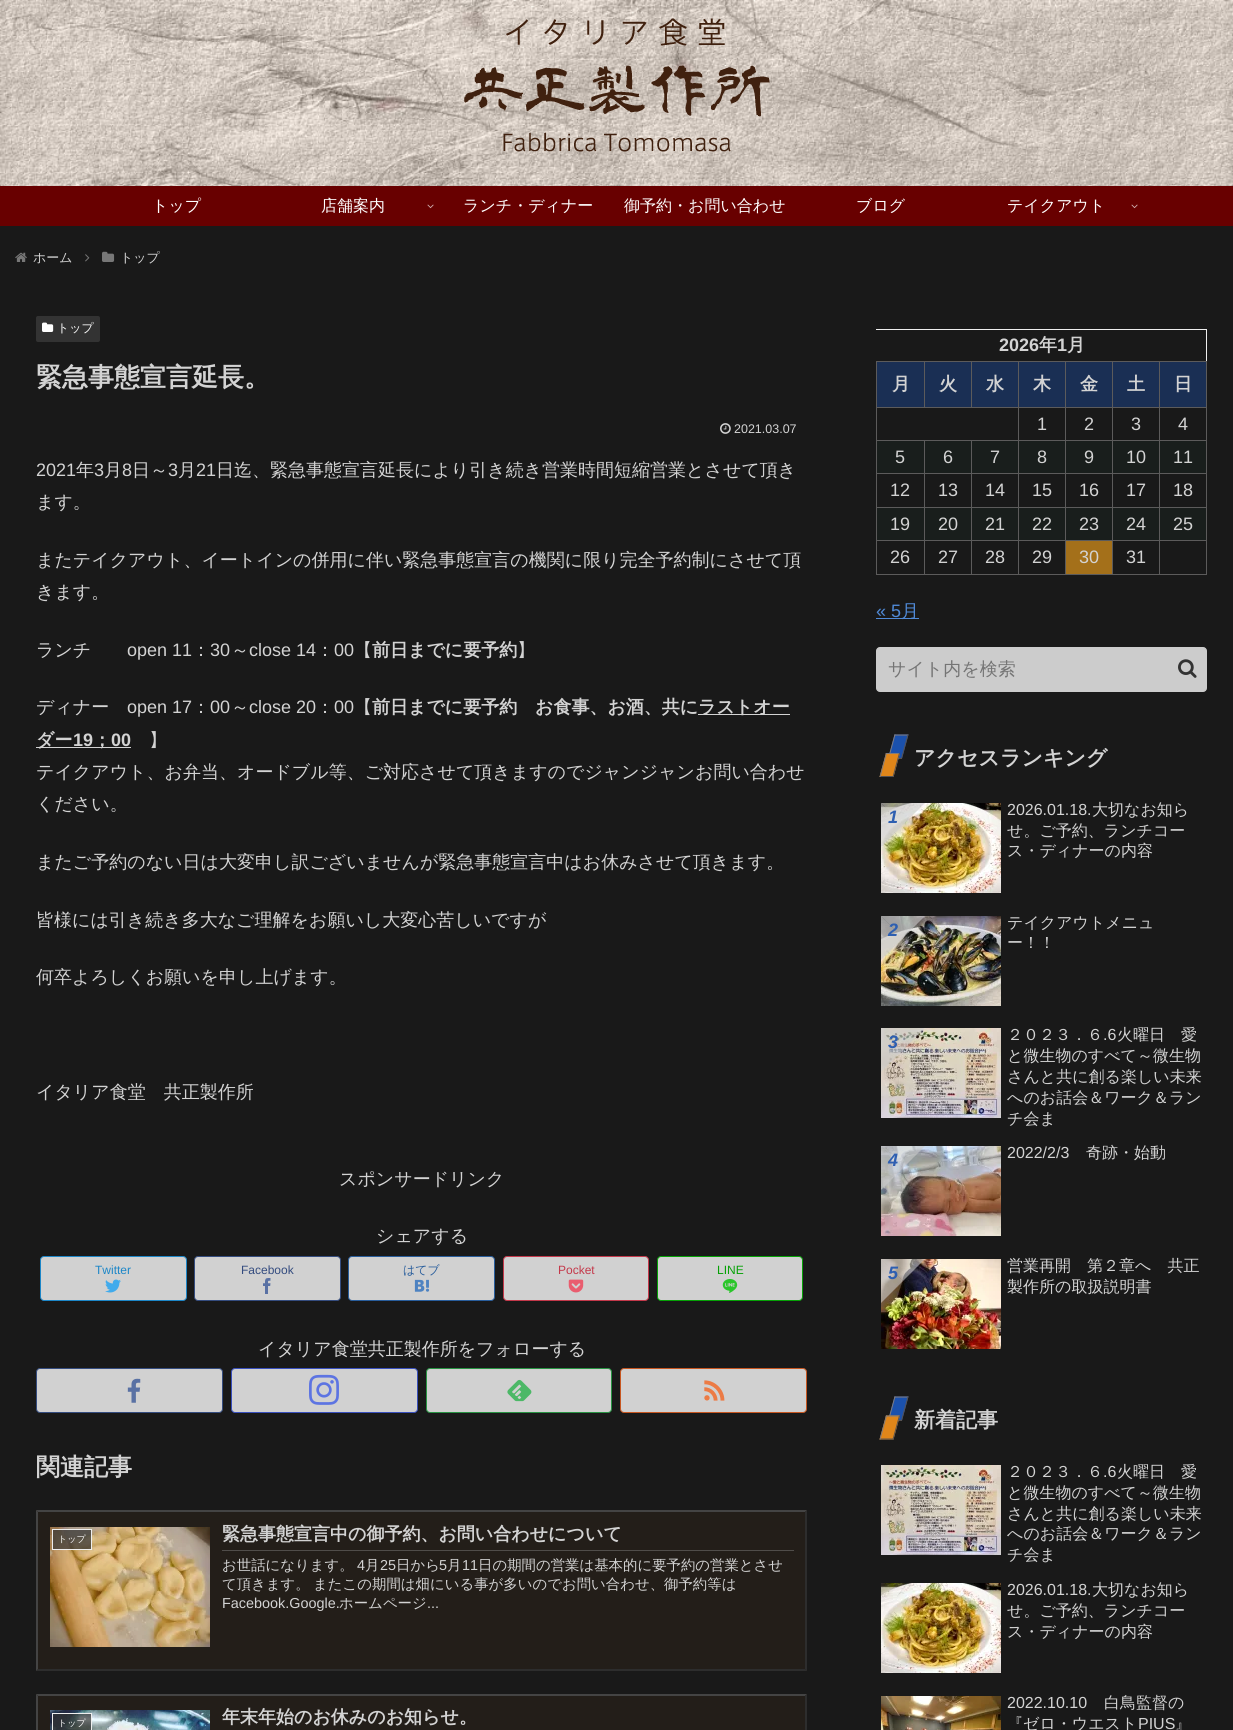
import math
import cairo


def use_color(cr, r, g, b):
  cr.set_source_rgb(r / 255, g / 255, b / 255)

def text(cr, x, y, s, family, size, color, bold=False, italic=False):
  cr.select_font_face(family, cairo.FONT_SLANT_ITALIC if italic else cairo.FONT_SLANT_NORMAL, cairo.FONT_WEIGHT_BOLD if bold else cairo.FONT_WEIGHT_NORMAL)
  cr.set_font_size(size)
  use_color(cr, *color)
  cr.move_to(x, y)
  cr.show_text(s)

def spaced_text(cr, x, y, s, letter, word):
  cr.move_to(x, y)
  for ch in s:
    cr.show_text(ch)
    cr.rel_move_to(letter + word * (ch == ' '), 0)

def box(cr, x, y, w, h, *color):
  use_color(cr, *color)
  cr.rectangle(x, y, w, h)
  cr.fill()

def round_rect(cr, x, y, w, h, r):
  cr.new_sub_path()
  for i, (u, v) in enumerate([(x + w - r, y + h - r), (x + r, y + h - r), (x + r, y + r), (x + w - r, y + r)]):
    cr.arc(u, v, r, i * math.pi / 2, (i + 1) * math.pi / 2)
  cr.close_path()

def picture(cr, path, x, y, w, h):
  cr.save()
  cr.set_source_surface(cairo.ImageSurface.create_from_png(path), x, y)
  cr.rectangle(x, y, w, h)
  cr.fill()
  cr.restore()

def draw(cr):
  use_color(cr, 25, 25, 25)
  cr.paint()
  picture(cr, "img_01.png", 0, 0, 1233, 186)
  picture(cr, "img_02.png", 464, 18, 306, 134)
  box(cr, 0, 186, 1233, 40, 104, 0, 0)
  picture(cr, "img_03.png", 427, 204, 7, 5)
  picture(cr, "img_03.png", 1131, 204, 7, 5)
  picture(cr, "img_04.png", 15, 252, 12, 10)
  picture(cr, "img_05.png", 85, 254, 5, 8)
  picture(cr, "img_06.png", 102, 251, 13, 11)
  use_color(cr, 51, 51, 51)
  round_rect(cr, 36, 316, 64, 26, 2)
  cr.fill()
  picture(cr, "img_07.png", 42, 322, 12, 10)
  picture(cr, "img_08.png", 720, 423, 11, 11)
  box(cr, 698, 714, 92, 1, 211, 211, 211)
  box(cr, 36, 747, 95, 1, 211, 211, 211)
  use_color(cr, 209, 209, 209)
  round_rect(cr, 40.5, 1256.5, 146, 44, 3.5)
  cr.fill_preserve()
  use_color(cr, 28, 134, 199)
  cr.set_line_width(1)
  cr.stroke()
  picture(cr, "img_09.png", 105, 1279, 16, 14)
  use_color(cr, 209, 209, 209)
  round_rect(cr, 194.5, 1256.5, 146, 44, 3.5)
  cr.fill_preserve()
  use_color(cr, 52, 76, 127)
  cr.stroke()
  picture(cr, "img_10.png", 263, 1278, 8, 16)
  use_color(cr, 209, 209, 209)
  round_rect(cr, 348.5, 1256.5, 146, 44, 3.5)
  cr.fill_preserve()
  use_color(cr, 40, 93, 156)
  cr.stroke()
  picture(cr, "img_11.png", 414, 1279, 16, 13)
  use_color(cr, 209, 209, 209)
  round_rect(cr, 503.5, 1256.5, 145, 44, 3.5)
  cr.fill_preserve()
  use_color(cr, 196, 56, 74)
  cr.stroke()
  picture(cr, "img_12.png", 568, 1279, 16, 14)
  use_color(cr, 209, 209, 209)
  round_rect(cr, 657.5, 1256.5, 145, 44, 3.5)
  cr.fill_preserve()
  use_color(cr, 5, 161, 5)
  cr.stroke()
  picture(cr, "img_13.png", 722, 1279, 16, 14)
  use_color(cr, 209, 209, 209)
  round_rect(cr, 36.5, 1368.5, 186, 44, 3.5)
  cr.fill_preserve()
  use_color(cr, 52, 76, 127)
  cr.stroke()
  picture(cr, "img_14.png", 127, 1378, 14, 25)
  use_color(cr, 209, 209, 209)
  round_rect(cr, 231.5, 1368.5, 186, 44, 3.5)
  cr.fill_preserve()
  use_color(cr, 56, 79, 189)
  cr.stroke()
  picture(cr, "img_15.png", 309, 1374, 30, 31)
  use_color(cr, 209, 209, 209)
  round_rect(cr, 426.5, 1368.5, 185, 44, 3.5)
  cr.fill_preserve()
  use_color(cr, 39, 147, 66)
  cr.stroke()
  picture(cr, "img_16.png", 507, 1379, 25, 23)
  use_color(cr, 209, 209, 209)
  round_rect(cr, 620.5, 1368.5, 186, 44, 3.5)
  cr.fill_preserve()
  use_color(cr, 199, 86, 32)
  cr.stroke()
  picture(cr, "img_17.png", 704, 1380, 21, 21)
  box(cr, 36, 1510, 771, 161, 35, 30, 25)
  use_color(cr, 68, 68, 68)
  cr.new_path()
  cr.move_to(36, 1510)
  cr.line_to(807, 1510)
  cr.line_to(805, 1512)
  cr.line_to(38, 1512)
  cr.close_path()
  cr.fill()
  use_color(cr, 45, 45, 45)
  cr.new_path()
  cr.move_to(807, 1510)
  cr.line_to(807, 1671)
  cr.line_to(805, 1669)
  cr.line_to(805, 1512)
  cr.close_path()
  cr.fill()
  cr.new_path()
  cr.move_to(807, 1671)
  cr.line_to(36, 1671)
  cr.line_to(38, 1669)
  cr.line_to(805, 1669)
  cr.close_path()
  cr.fill()
  use_color(cr, 68, 68, 68)
  cr.new_path()
  cr.move_to(36, 1671)
  cr.line_to(36, 1510)
  cr.line_to(38, 1512)
  cr.line_to(38, 1669)
  cr.close_path()
  cr.fill()
  picture(cr, "img_18.png", 50, 1527, 160, 120)
  cr.set_source_rgba(0.2, 0.2, 0.2, 0.7)
  cr.rectangle(52.5, 1529.5, 39, 20)
  cr.fill_preserve()
  use_color(cr, 238, 238, 238)
  cr.stroke()
  box(cr, 222, 1550, 572, 1, 80, 77, 74)
  box(cr, 36, 1694, 771, 36, 35, 30, 25)
  use_color(cr, 68, 68, 68)
  cr.new_path()
  cr.move_to(36, 1694)
  cr.line_to(807, 1694)
  cr.line_to(805, 1696)
  cr.line_to(38, 1696)
  cr.close_path()
  cr.fill()
  use_color(cr, 45, 45, 45)
  cr.new_path()
  cr.move_to(807, 1694)
  cr.line_to(807, 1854)
  cr.line_to(805, 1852)
  cr.line_to(805, 1696)
  cr.close_path()
  cr.fill()
  use_color(cr, 68, 68, 68)
  cr.new_path()
  cr.move_to(36, 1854)
  cr.line_to(36, 1694)
  cr.line_to(38, 1696)
  cr.line_to(38, 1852)
  cr.close_path()
  cr.fill()
  picture(cr, "img_19.png", 50, 1710, 160, 20)
  cr.set_source_rgba(0.2, 0.2, 0.2, 0.7)
  cr.rectangle(52.5, 1713.5, 39, 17)
  cr.fill_preserve()
  use_color(cr, 238, 238, 238)
  cr.stroke()
  box(cr, 876, 329, 331, 1, 238, 238, 238)
  box(cr, 1206, 329, 1, 32, 238, 238, 238)
  box(cr, 877, 362, 47, 45, 26, 47, 84)
  box(cr, 1159, 361, 48, 1, 92, 91, 91)
  box(cr, 1159, 407, 48, 1, 92, 91, 91)
  box(cr, 1159, 440, 48, 1, 92, 91, 91)
  box(cr, 877, 441, 329, 32, 25, 30, 28)
  box(cr, 1159, 473, 48, 1, 92, 91, 91)
  box(cr, 1159, 507, 48, 1, 92, 91, 91)
  box(cr, 877, 508, 329, 32, 25, 30, 28)
  box(cr, 1159, 540, 48, 1, 92, 91, 91)
  box(cr, 1206, 540, 1, 35, 92, 91, 91)
  box(cr, 1159, 574, 48, 1, 92, 91, 91)
  box(cr, 1159, 540, 1, 35, 92, 91, 91)
  box(cr, 1112, 540, 48, 1, 92, 91, 91)
  box(cr, 1159, 507, 1, 34, 92, 91, 91)
  box(cr, 1112, 507, 48, 1, 92, 91, 91)
  box(cr, 1159, 473, 1, 35, 92, 91, 91)
  box(cr, 1112, 473, 48, 1, 92, 91, 91)
  box(cr, 1159, 440, 1, 34, 92, 91, 91)
  box(cr, 1112, 440, 48, 1, 92, 91, 91)
  box(cr, 1159, 407, 1, 34, 92, 91, 91)
  box(cr, 1112, 407, 48, 1, 92, 91, 91)
  box(cr, 1159, 361, 1, 47, 92, 91, 91)
  box(cr, 1112, 361, 48, 1, 92, 91, 91)
  box(cr, 1112, 574, 48, 1, 92, 91, 91)
  box(cr, 1112, 540, 1, 35, 92, 91, 91)
  box(cr, 1065, 540, 48, 1, 92, 91, 91)
  box(cr, 1112, 507, 1, 34, 92, 91, 91)
  box(cr, 1065, 507, 48, 1, 92, 91, 91)
  box(cr, 1112, 473, 1, 35, 92, 91, 91)
  box(cr, 1065, 473, 48, 1, 92, 91, 91)
  box(cr, 1112, 440, 1, 34, 92, 91, 91)
  box(cr, 1065, 440, 48, 1, 92, 91, 91)
  box(cr, 1112, 407, 1, 34, 92, 91, 91)
  box(cr, 1065, 407, 48, 1, 92, 91, 91)
  box(cr, 1112, 361, 1, 47, 92, 91, 91)
  box(cr, 1065, 361, 48, 1, 92, 91, 91)
  box(cr, 1065, 574, 48, 1, 92, 91, 91)
  box(cr, 1065, 540, 1, 35, 92, 91, 91)
  box(cr, 1018, 540, 48, 1, 92, 91, 91)
  box(cr, 1065, 507, 1, 34, 92, 91, 91)
  box(cr, 1018, 507, 48, 1, 92, 91, 91)
  box(cr, 1065, 473, 1, 35, 92, 91, 91)
  box(cr, 1018, 473, 48, 1, 92, 91, 91)
  box(cr, 1065, 440, 1, 34, 92, 91, 91)
  box(cr, 1018, 440, 48, 1, 92, 91, 91)
  box(cr, 1065, 407, 1, 34, 92, 91, 91)
  box(cr, 1018, 407, 48, 1, 92, 91, 91)
  box(cr, 1065, 361, 1, 47, 92, 91, 91)
  box(cr, 1018, 361, 48, 1, 92, 91, 91)
  box(cr, 1018, 574, 48, 1, 92, 91, 91)
  box(cr, 1018, 540, 1, 35, 92, 91, 91)
  box(cr, 971, 540, 48, 1, 92, 91, 91)
  box(cr, 1018, 507, 1, 34, 92, 91, 91)
  box(cr, 971, 507, 48, 1, 92, 91, 91)
  box(cr, 1018, 473, 1, 35, 92, 91, 91)
  box(cr, 971, 473, 48, 1, 92, 91, 91)
  box(cr, 1018, 440, 1, 34, 92, 91, 91)
  box(cr, 971, 440, 48, 1, 92, 91, 91)
  box(cr, 1018, 407, 1, 34, 92, 91, 91)
  box(cr, 876, 407, 143, 1, 92, 91, 91)
  box(cr, 1018, 361, 1, 47, 92, 91, 91)
  box(cr, 971, 361, 48, 1, 92, 91, 91)
  box(cr, 971, 361, 1, 47, 92, 91, 91)
  box(cr, 924, 361, 48, 1, 92, 91, 91)
  box(cr, 924, 361, 1, 47, 92, 91, 91)
  box(cr, 876, 361, 49, 1, 92, 91, 91)
  box(cr, 971, 574, 48, 1, 92, 91, 91)
  box(cr, 971, 540, 1, 35, 92, 91, 91)
  box(cr, 924, 540, 48, 1, 92, 91, 91)
  box(cr, 971, 507, 1, 34, 92, 91, 91)
  box(cr, 924, 507, 48, 1, 92, 91, 91)
  box(cr, 971, 473, 1, 35, 92, 91, 91)
  box(cr, 924, 473, 48, 1, 92, 91, 91)
  box(cr, 971, 440, 1, 34, 92, 91, 91)
  box(cr, 924, 440, 48, 1, 92, 91, 91)
  box(cr, 924, 574, 48, 1, 92, 91, 91)
  box(cr, 924, 540, 1, 35, 92, 91, 91)
  box(cr, 876, 540, 49, 1, 92, 91, 91)
  box(cr, 924, 507, 1, 34, 92, 91, 91)
  box(cr, 876, 507, 49, 1, 92, 91, 91)
  box(cr, 924, 473, 1, 35, 92, 91, 91)
  box(cr, 876, 473, 49, 1, 92, 91, 91)
  box(cr, 924, 440, 1, 34, 92, 91, 91)
  box(cr, 876, 440, 49, 1, 92, 91, 91)
  box(cr, 876, 574, 49, 1, 92, 91, 91)
  box(cr, 876, 540, 1, 35, 92, 91, 91)
  box(cr, 876, 507, 1, 34, 92, 91, 91)
  box(cr, 876, 473, 1, 35, 92, 91, 91)
  box(cr, 876, 440, 1, 34, 92, 91, 91)
  box(cr, 876, 407, 1, 34, 92, 91, 91)
  box(cr, 876, 361, 1, 47, 92, 91, 91)
  box(cr, 925, 362, 46, 45, 26, 47, 84)
  box(cr, 972, 362, 46, 45, 26, 47, 84)
  box(cr, 1019, 362, 46, 45, 26, 47, 84)
  box(cr, 1066, 362, 46, 45, 26, 47, 84)
  box(cr, 1113, 362, 46, 45, 26, 47, 84)
  box(cr, 1160, 362, 46, 45, 26, 47, 84)
  box(cr, 1206, 507, 1, 34, 92, 91, 91)
  box(cr, 1206, 473, 1, 35, 92, 91, 91)
  box(cr, 1206, 440, 1, 34, 92, 91, 91)
  box(cr, 1206, 407, 1, 34, 92, 91, 91)
  box(cr, 1206, 361, 1, 47, 92, 91, 91)
  box(cr, 1066, 541, 46, 33, 164, 112, 26)
  box(cr, 876, 618, 43, 1, 80, 138, 215)
  use_color(cr, 204, 204, 204)
  round_rect(cr, 876.5, 647.5, 330, 44, 3.5)
  cr.fill_preserve()
  cr.stroke()
  picture(cr, "img_20.png", 1178, 659, 19, 19)
  use_color(cr, 27, 81, 173)
  cr.new_path()
  cr.move_to(894.5, 734.5)
  cr.line_to(908.5, 734.5)
  cr.line_to(902, 758.5)
  cr.line_to(888, 758.5)
  cr.close_path()
  cr.fill()
  use_color(cr, 129, 123, 123)
  cr.new_path()
  cr.move_to(894.5, 734.5)
  cr.line_to(908.5, 734.5)
  cr.line_to(908, 735.5)
  cr.line_to(894, 735.5)
  cr.close_path()
  cr.fill()
  use_color(cr, 86, 82, 82)
  cr.new_path()
  cr.move_to(907.5, 734.5)
  cr.line_to(908.5, 734.5)
  cr.line_to(902, 758.5)
  cr.line_to(901, 758.5)
  cr.close_path()
  cr.fill()
  box(cr, 898, 758, 4, 1, 86, 82, 82)
  use_color(cr, 129, 123, 123)
  cr.new_path()
  cr.move_to(894.5, 734.5)
  cr.line_to(895.5, 734.5)
  cr.line_to(889, 758.5)
  cr.line_to(888, 758.5)
  cr.close_path()
  cr.fill()
  use_color(cr, 224, 134, 26)
  cr.new_path()
  cr.move_to(886, 753)
  cr.line_to(900, 753)
  cr.line_to(893.5, 777)
  cr.line_to(879.5, 777)
  cr.close_path()
  cr.fill()
  use_color(cr, 129, 123, 123)
  cr.new_path()
  cr.move_to(886, 753)
  cr.line_to(900, 753)
  cr.line_to(899.5, 754)
  cr.line_to(885.5, 754)
  cr.close_path()
  cr.fill()
  use_color(cr, 86, 82, 82)
  cr.new_path()
  cr.move_to(899, 753)
  cr.line_to(900, 753)
  cr.line_to(893.5, 777)
  cr.line_to(892.5, 777)
  cr.close_path()
  cr.fill()
  cr.new_path()
  cr.move_to(880, 776)
  cr.line_to(894, 776)
  cr.line_to(893.5, 777)
  cr.line_to(879.5, 777)
  cr.close_path()
  cr.fill()
  use_color(cr, 129, 123, 123)
  cr.new_path()
  cr.move_to(886, 753)
  cr.line_to(887, 753)
  cr.line_to(880.5, 777)
  cr.line_to(879.5, 777)
  cr.close_path()
  cr.fill()
  picture(cr, "img_21.png", 881, 803, 120, 90)
  cr.set_source_rgba(0.8, 0.8, 0.8, 0.6)
  cr.new_path()
  cr.move_to(881, 803)
  cr.line_to(925, 803)
  cr.line_to(903, 825)
  cr.close_path()
  cr.fill()
  cr.new_path()
  cr.move_to(881, 847)
  cr.line_to(881, 803)
  cr.line_to(903, 825)
  cr.close_path()
  cr.fill()
  picture(cr, "img_22.png", 881, 916, 120, 90)
  cr.new_path()
  cr.move_to(881, 916)
  cr.line_to(925, 916)
  cr.line_to(903, 938)
  cr.close_path()
  cr.fill()
  cr.new_path()
  cr.move_to(881, 960)
  cr.line_to(881, 916)
  cr.line_to(903, 938)
  cr.close_path()
  cr.fill()
  picture(cr, "img_23.png", 881, 1028, 120, 90)
  cr.new_path()
  cr.move_to(881, 1028)
  cr.line_to(925, 1028)
  cr.line_to(903, 1050)
  cr.close_path()
  cr.fill()
  cr.new_path()
  cr.move_to(881, 1072)
  cr.line_to(881, 1028)
  cr.line_to(903, 1050)
  cr.close_path()
  cr.fill()
  picture(cr, "img_24.png", 881, 1146, 120, 90)
  cr.new_path()
  cr.move_to(881, 1146)
  cr.line_to(925, 1146)
  cr.line_to(903, 1168)
  cr.close_path()
  cr.fill()
  cr.new_path()
  cr.move_to(881, 1190)
  cr.line_to(881, 1146)
  cr.line_to(903, 1168)
  cr.close_path()
  cr.fill()
  picture(cr, "img_25.png", 881, 1259, 120, 90)
  cr.new_path()
  cr.move_to(881, 1259)
  cr.line_to(925, 1259)
  cr.line_to(903, 1281)
  cr.close_path()
  cr.fill()
  cr.new_path()
  cr.move_to(881, 1303)
  cr.line_to(881, 1259)
  cr.line_to(903, 1281)
  cr.close_path()
  cr.fill()
  use_color(cr, 27, 81, 173)
  cr.new_path()
  cr.move_to(894.5, 1396.5)
  cr.line_to(908.5, 1396.5)
  cr.line_to(902, 1420.5)
  cr.line_to(888, 1420.5)
  cr.close_path()
  cr.fill()
  use_color(cr, 129, 123, 123)
  cr.new_path()
  cr.move_to(894.5, 1396.5)
  cr.line_to(908.5, 1396.5)
  cr.line_to(908, 1397.5)
  cr.line_to(894, 1397.5)
  cr.close_path()
  cr.fill()
  use_color(cr, 86, 82, 82)
  cr.new_path()
  cr.move_to(907.5, 1396.5)
  cr.line_to(908.5, 1396.5)
  cr.line_to(902, 1420.5)
  cr.line_to(901, 1420.5)
  cr.close_path()
  cr.fill()
  box(cr, 898, 1420, 4, 1, 86, 82, 82)
  use_color(cr, 129, 123, 123)
  cr.new_path()
  cr.move_to(894.5, 1396.5)
  cr.line_to(895.5, 1396.5)
  cr.line_to(889, 1420.5)
  cr.line_to(888, 1420.5)
  cr.close_path()
  cr.fill()
  use_color(cr, 224, 134, 26)
  cr.new_path()
  cr.move_to(886, 1415.5)
  cr.line_to(900, 1415.5)
  cr.line_to(893.5, 1439.5)
  cr.line_to(879.5, 1439.5)
  cr.close_path()
  cr.fill()
  use_color(cr, 129, 123, 123)
  cr.new_path()
  cr.move_to(886, 1415.5)
  cr.line_to(900, 1415.5)
  cr.line_to(899.5, 1416.5)
  cr.line_to(885.5, 1416.5)
  cr.close_path()
  cr.fill()
  use_color(cr, 86, 82, 82)
  cr.new_path()
  cr.move_to(899, 1415.5)
  cr.line_to(900, 1415.5)
  cr.line_to(893.5, 1439.5)
  cr.line_to(892.5, 1439.5)
  cr.close_path()
  cr.fill()
  cr.new_path()
  cr.move_to(880, 1438.5)
  cr.line_to(894, 1438.5)
  cr.line_to(893.5, 1439.5)
  cr.line_to(879.5, 1439.5)
  cr.close_path()
  cr.fill()
  use_color(cr, 129, 123, 123)
  cr.new_path()
  cr.move_to(886, 1415.5)
  cr.line_to(887, 1415.5)
  cr.line_to(880.5, 1439.5)
  cr.line_to(879.5, 1439.5)
  cr.close_path()
  cr.fill()
  picture(cr, "img_23.png", 881, 1465, 120, 90)
  picture(cr, "img_21.png", 881, 1583, 120, 90)
  picture(cr, "img_26.png", 881, 1696, 120, 34)
  text(cr, 152, 211, "トップ", "WenQuanYi Zen Hei Medium", 16, (255, 255, 255))
  text(cr, 321, 211, "店舗案内", "WenQuanYi Zen Hei Medium", 16, (255, 255, 255))
  text(cr, 463, 211, "ランチ・ディナー", "WenQuanYi Zen Hei Medium", 16, (255, 255, 255))
  text(cr, 624, 211, "御予約・お問い合わせ", "WenQuanYi Zen Hei Medium", 16, (255, 255, 255))
  text(cr, 856, 211, "ブログ", "WenQuanYi Zen Hei Medium", 16, (255, 255, 255))
  text(cr, 1007, 211, "テイクアウト", "WenQuanYi Zen Hei Medium", 16, (255, 255, 255))
  text(cr, 33, 262, "ホーム", "WenQuanYi Zen Hei Medium", 13, (211, 211, 211))
  text(cr, 120, 262, "トップ", "WenQuanYi Zen Hei Medium", 13, (211, 211, 211))
  text(cr, 57, 332, "トップ", "WenQuanYi Zen Hei Medium", 12, (255, 255, 255))
  text(cr, 36, 386, "緊急事態宣言延長。", "WenQuanYi Zen Hei", 26, (211, 211, 211), bold=True)
  text(cr, 734, 433, "2021.03.07", "Liberation Sans", 12.5, (211, 211, 211))
  text(cr, 36, 476, "2021", "Liberation Sans", 18, (211, 211, 211))
  text(cr, 76, 476, "年", "WenQuanYi Zen Hei Medium", 18, (211, 211, 211))
  text(cr, 94, 476, "3", "Liberation Sans", 18, (211, 211, 211))
  text(cr, 104, 476, "月", "WenQuanYi Zen Hei Medium", 18, (211, 211, 211))
  text(cr, 122, 476, "8", "Liberation Sans", 18, (211, 211, 211))
  text(cr, 132, 476, "日～", "WenQuanYi Zen Hei Medium", 18, (211, 211, 211))
  text(cr, 168, 476, "3", "Liberation Sans", 18, (211, 211, 211))
  text(cr, 178, 476, "月", "WenQuanYi Zen Hei Medium", 18, (211, 211, 211))
  text(cr, 196, 476, "21", "Liberation Sans", 18, (211, 211, 211))
  text(cr, 216, 476, "日迄、緊急事態宣言延長により引き続き営業時間短縮営業とさせて頂き", "WenQuanYi Zen Hei Medium", 18, (211, 211, 211))
  text(cr, 36, 508, "ます。", "WenQuanYi Zen Hei Medium", 18, (211, 211, 211))
  text(cr, 36, 566, "またテイクアウト、イートインの併用に伴い緊急事態宣言の機関に限り完全予約制にさせて頂", "WenQuanYi Zen Hei Medium", 18, (211, 211, 211))
  text(cr, 36, 598, "きます。", "WenQuanYi Zen Hei Medium", 18, (211, 211, 211))
  text(cr, 36, 656, "ランチ", "WenQuanYi Zen Hei Medium", 18, (211, 211, 211))
  text(cr, 127, 656, "open 11", "Liberation Sans", 18, (211, 211, 211))
  text(cr, 192, 656, "：", "WenQuanYi Zen Hei Medium", 18, (211, 211, 211))
  text(cr, 210, 656, "30", "Liberation Sans", 18, (211, 211, 211))
  text(cr, 231, 656, "～", "WenQuanYi Zen Hei Medium", 18, (211, 211, 211))
  text(cr, 249, 656, "close 14", "Liberation Sans", 18, (211, 211, 211))
  text(cr, 316, 656, "：", "WenQuanYi Zen Hei Medium", 18, (211, 211, 211))
  text(cr, 334, 656, "00", "Liberation Sans", 18, (211, 211, 211))
  text(cr, 354, 656, "【", "WenQuanYi Zen Hei Medium", 18, (211, 211, 211))
  text(cr, 372, 656, "前日までに要予約", "WenQuanYi Zen Hei", 18, (211, 211, 211), bold=True)
  text(cr, 517, 656, "】", "WenQuanYi Zen Hei Medium", 18, (211, 211, 211))
  text(cr, 36, 713, "ディナー", "WenQuanYi Zen Hei Medium", 18, (211, 211, 211))
  text(cr, 127, 713, "open 17", "Liberation Sans", 18, (211, 211, 211))
  text(cr, 192, 713, "：", "WenQuanYi Zen Hei Medium", 18, (211, 211, 211))
  text(cr, 210, 713, "00", "Liberation Sans", 18, (211, 211, 211))
  text(cr, 231, 713, "～", "WenQuanYi Zen Hei Medium", 18, (211, 211, 211))
  text(cr, 249, 713, "close 20", "Liberation Sans", 18, (211, 211, 211))
  text(cr, 316, 713, "：", "WenQuanYi Zen Hei Medium", 18, (211, 211, 211))
  text(cr, 334, 713, "00", "Liberation Sans", 18, (211, 211, 211))
  text(cr, 354, 713, "【", "WenQuanYi Zen Hei Medium", 18, (211, 211, 211))
  text(cr, 372, 713, "前日までに要予約", "WenQuanYi Zen Hei", 18, (211, 211, 211), bold=True)
  text(cr, 535, 713, "お食事、お酒、共に", "WenQuanYi Zen Hei", 18, (211, 211, 211), bold=True)
  text(cr, 698, 713, "ラストオー", "WenQuanYi Zen Hei", 18, (211, 211, 211), bold=True)
  text(cr, 36, 746, "ダー", "WenQuanYi Zen Hei", 18, (211, 211, 211), bold=True)
  text(cr, 73, 746, "19", "Liberation Sans", 18, (211, 211, 211), bold=True)
  text(cr, 93, 746, "；", "WenQuanYi Zen Hei", 18, (211, 211, 211), bold=True)
  text(cr, 111, 746, "00", "Liberation Sans", 18, (211, 211, 211), bold=True)
  text(cr, 149, 746, "】", "WenQuanYi Zen Hei Medium", 18, (211, 211, 211))
  text(cr, 36, 778, "テイクアウト、お弁当、オードブル等、ご対応させて頂きますのでジャンジャンお問い合わせ", "WenQuanYi Zen Hei Medium", 18, (211, 211, 211))
  text(cr, 36, 810, "ください。", "WenQuanYi Zen Hei Medium", 18, (211, 211, 211))
  text(cr, 36, 868, "またご予約のない日は大変申し訳ございませんが緊急事態宣言中はお休みさせて頂きます。", "WenQuanYi Zen Hei Medium", 18, (211, 211, 211))
  text(cr, 36, 926, "皆様には引き続き多大なご理解をお願いし大変心苦しいですが", "WenQuanYi Zen Hei Medium", 18, (211, 211, 211))
  text(cr, 36, 983, "何卒よろしくお願いを申し上げます。", "WenQuanYi Zen Hei Medium", 18, (211, 211, 211))
  text(cr, 36, 1098, "イタリア食堂　共正製作所", "WenQuanYi Zen Hei Medium", 18, (211, 211, 211))
  text(cr, 339, 1185, "スポンサードリンク", "WenQuanYi Zen Hei Medium", 18, (211, 211, 211))
  text(cr, 376, 1242, "シェアする", "WenQuanYi Zen Hei Medium", 18, (211, 211, 211))
  text(cr, 95, 1274, "Twitter", "Liberation Sans", 12, (28, 134, 199))
  text(cr, 241, 1274, "Facebook", "Liberation Sans", 12, (52, 76, 127))
  text(cr, 403, 1274, "はてブ", "WenQuanYi Zen Hei Medium", 12, (40, 93, 156))
  text(cr, 558, 1274, "Pocket", "Liberation Sans", 12, (196, 56, 74))
  text(cr, 717, 1274, "LINE", "Liberation Sans", 12, (5, 161, 5))
  text(cr, 258, 1355, "イタリア食堂共正製作所をフォローする", "WenQuanYi Zen Hei Medium", 18, (211, 211, 211))
  text(cr, 36, 1475, "関連記事", "WenQuanYi Zen Hei", 24, (211, 211, 211), bold=True)
  text(cr, 58, 1542, "トップ", "WenQuanYi Zen Hei Medium", 9, (255, 255, 255))
  text(cr, 222, 1540, "緊急事態宣言中の御予約、お問い合わせについて", "WenQuanYi Zen Hei", 18, (211, 211, 211), bold=True)
  text(cr, 222, 1570, "お世話になります。", "WenQuanYi Zen Hei Medium", 14.4, (211, 211, 211))
  text(cr, 357, 1570, "4", "Liberation Sans", 14.4, (211, 211, 211))
  text(cr, 365, 1570, "月", "WenQuanYi Zen Hei Medium", 14.4, (211, 211, 211))
  text(cr, 380, 1570, "25", "Liberation Sans", 14.4, (211, 211, 211))
  text(cr, 396, 1570, "日から", "WenQuanYi Zen Hei Medium", 14.4, (211, 211, 211))
  text(cr, 439, 1570, "5", "Liberation Sans", 14.4, (211, 211, 211))
  text(cr, 447, 1570, "月", "WenQuanYi Zen Hei Medium", 14.4, (211, 211, 211))
  text(cr, 462, 1570, "11", "Liberation Sans", 14.4, (211, 211, 211))
  text(cr, 478, 1570, "日の期間の営業は基本的に要予約の営業とさせ", "WenQuanYi Zen Hei Medium", 14.4, (211, 211, 211))
  spaced_text(cr, 222, 1589, "て頂きます。 またこの期間は畑にいる事が多いのでお問い合わせ、御予約等は", 0, -1)
  text(cr, 222, 1608, "Facebook.Google.", "Liberation Sans", 14.4, (211, 211, 211))
  text(cr, 339, 1608, "ホームページ", "WenQuanYi Zen Hei Medium", 14.4, (211, 211, 211))
  text(cr, 427, 1608, "...", "Liberation Sans", 14.4, (211, 211, 211))
  text(cr, 58, 1726, "トップ", "WenQuanYi Zen Hei Medium", 9, (255, 255, 255))
  text(cr, 222, 1723, "年末年始のお休みのお知らせ。", "WenQuanYi Zen Hei", 18, (211, 211, 211), bold=True)
  text(cr, 999, 351, "2026", "Liberation Sans", 18, (211, 211, 211), bold=True)
  text(cr, 1039, 351, "年", "WenQuanYi Zen Hei", 18, (211, 211, 211), bold=True)
  text(cr, 1057, 351, "1", "Liberation Sans", 18, (211, 211, 211), bold=True)
  text(cr, 1067, 351, "月", "WenQuanYi Zen Hei", 18, (211, 211, 211), bold=True)
  text(cr, 892, 390, "月", "WenQuanYi Zen Hei", 18, (211, 211, 211), bold=True)
  text(cr, 939, 390, "火", "WenQuanYi Zen Hei", 18, (211, 211, 211), bold=True)
  text(cr, 986, 390, "水", "WenQuanYi Zen Hei", 18, (211, 211, 211), bold=True)
  text(cr, 1033, 390, "木", "WenQuanYi Zen Hei", 18, (211, 211, 211), bold=True)
  text(cr, 1080, 390, "金", "WenQuanYi Zen Hei", 18, (211, 211, 211), bold=True)
  text(cr, 1127, 390, "土", "WenQuanYi Zen Hei", 18, (211, 211, 211), bold=True)
  text(cr, 1174, 390, "日", "WenQuanYi Zen Hei", 18, (211, 211, 211), bold=True)
  text(cr, 1037, 430, "1", "Liberation Sans", 18, (211, 211, 211))
  text(cr, 1084, 430, "2", "Liberation Sans", 18, (211, 211, 211))
  text(cr, 1131, 430, "3", "Liberation Sans", 18, (211, 211, 211))
  text(cr, 1178, 430, "4", "Liberation Sans", 18, (211, 211, 211))
  text(cr, 895, 463, "5", "Liberation Sans", 18, (211, 211, 211))
  text(cr, 943, 463, "6", "Liberation Sans", 18, (211, 211, 211))
  text(cr, 990, 463, "7", "Liberation Sans", 18, (211, 211, 211))
  text(cr, 1037, 463, "8", "Liberation Sans", 18, (211, 211, 211))
  text(cr, 1084, 463, "9", "Liberation Sans", 18, (211, 211, 211))
  text(cr, 1126, 463, "10", "Liberation Sans", 18, (211, 211, 211))
  text(cr, 1173, 463, "11", "Liberation Sans", 18, (211, 211, 211))
  text(cr, 890, 496, "12", "Liberation Sans", 18, (211, 211, 211))
  text(cr, 938, 496, "13", "Liberation Sans", 18, (211, 211, 211))
  text(cr, 985, 496, "14", "Liberation Sans", 18, (211, 211, 211))
  text(cr, 1032, 496, "15", "Liberation Sans", 18, (211, 211, 211))
  text(cr, 1079, 496, "16", "Liberation Sans", 18, (211, 211, 211))
  text(cr, 1126, 496, "17", "Liberation Sans", 18, (211, 211, 211))
  text(cr, 1173, 496, "18", "Liberation Sans", 18, (211, 211, 211))
  text(cr, 890, 530, "19", "Liberation Sans", 18, (211, 211, 211))
  text(cr, 938, 530, "20", "Liberation Sans", 18, (211, 211, 211))
  text(cr, 985, 530, "21", "Liberation Sans", 18, (211, 211, 211))
  text(cr, 1032, 530, "22", "Liberation Sans", 18, (211, 211, 211))
  text(cr, 1079, 530, "23", "Liberation Sans", 18, (211, 211, 211))
  text(cr, 1126, 530, "24", "Liberation Sans", 18, (211, 211, 211))
  text(cr, 1173, 530, "25", "Liberation Sans", 18, (211, 211, 211))
  text(cr, 890, 563, "26", "Liberation Sans", 18, (211, 211, 211))
  text(cr, 938, 563, "27", "Liberation Sans", 18, (211, 211, 211))
  text(cr, 985, 563, "28", "Liberation Sans", 18, (211, 211, 211))
  text(cr, 1032, 563, "29", "Liberation Sans", 18, (211, 211, 211))
  text(cr, 1079, 563, "30", "Liberation Sans", 18, (211, 211, 211))
  text(cr, 1126, 563, "31", "Liberation Sans", 18, (211, 211, 211))
  text(cr, 876, 617, "« 5", "Liberation Sans", 18, (80, 138, 215))
  text(cr, 901, 617, "月", "WenQuanYi Zen Hei Medium", 18, (80, 138, 215))
  text(cr, 888, 675, "サイト内を検索", "WenQuanYi Zen Hei Medium", 18, (117, 117, 117))
  text(cr, 914, 765, "アクセスランキング", "WenQuanYi Zen Hei", 21, (211, 211, 211), bold=True)
  text(cr, 888, 823, "1", "Liberation Sans", 18, (46, 95, 177), bold=True, italic=True)
  text(cr, 1007, 815, "2026.01.18.", "Liberation Sans", 16, (211, 211, 211))
  text(cr, 1092, 815, "大切なお知ら", "WenQuanYi Zen Hei Medium", 16, (211, 211, 211))
  text(cr, 1007, 836, "せ。ご予約、ランチコー", "WenQuanYi Zen Hei Medium", 16, (211, 211, 211))
  text(cr, 1007, 856, "ス・ディナーの内容", "WenQuanYi Zen Hei Medium", 16, (211, 211, 211))
  text(cr, 888, 936, "2", "Liberation Sans", 18, (46, 95, 177), bold=True, italic=True)
  text(cr, 1007, 928, "テイクアウトメニュ", "WenQuanYi Zen Hei Medium", 16, (211, 211, 211))
  text(cr, 1007, 948, "ー！！", "WenQuanYi Zen Hei Medium", 16, (211, 211, 211))
  text(cr, 888, 1048, "3", "Liberation Sans", 18, (46, 95, 177), bold=True, italic=True)
  text(cr, 1007, 1040, "２０２３．６", "WenQuanYi Zen Hei Medium", 16, (211, 211, 211))
  text(cr, 1103, 1040, ".6", "Liberation Sans", 16, (211, 211, 211))
  text(cr, 1117, 1040, "火曜日　愛", "WenQuanYi Zen Hei Medium", 16, (211, 211, 211))
  text(cr, 1007, 1061, "と微生物のすべて～微生物", "WenQuanYi Zen Hei Medium", 16, (211, 211, 211))
  text(cr, 1007, 1082, "さんと共に創る楽しい未来", "WenQuanYi Zen Hei Medium", 16, (211, 211, 211))
  text(cr, 1007, 1103, "へのお話会＆ワーク＆ラン", "WenQuanYi Zen Hei Medium", 16, (211, 211, 211))
  text(cr, 1007, 1124, "チ会ま", "WenQuanYi Zen Hei Medium", 16, (211, 211, 211))
  text(cr, 888, 1166, "4", "Liberation Sans", 18, (46, 95, 177), bold=True, italic=True)
  text(cr, 1007, 1158, "2022/2/3", "Liberation Sans", 16, (211, 211, 211))
  text(cr, 1086, 1158, "奇跡・始動", "WenQuanYi Zen Hei Medium", 16, (211, 211, 211))
  text(cr, 888, 1279, "5", "Liberation Sans", 18, (46, 95, 177), bold=True, italic=True)
  text(cr, 1007, 1271, "営業再開　第２章へ　共正", "WenQuanYi Zen Hei Medium", 16, (211, 211, 211))
  text(cr, 1007, 1292, "製作所の取扱説明書", "WenQuanYi Zen Hei Medium", 16, (211, 211, 211))
  text(cr, 914, 1427, "新着記事", "WenQuanYi Zen Hei", 21, (211, 211, 211), bold=True)
  text(cr, 1007, 1477, "２０２３．６", "WenQuanYi Zen Hei Medium", 16, (211, 211, 211))
  text(cr, 1103, 1477, ".6", "Liberation Sans", 16, (211, 211, 211))
  text(cr, 1117, 1477, "火曜日　愛", "WenQuanYi Zen Hei Medium", 16, (211, 211, 211))
  text(cr, 1007, 1498, "と微生物のすべて～微生物", "WenQuanYi Zen Hei Medium", 16, (211, 211, 211))
  text(cr, 1007, 1519, "さんと共に創る楽しい未来", "WenQuanYi Zen Hei Medium", 16, (211, 211, 211))
  text(cr, 1007, 1539, "へのお話会＆ワーク＆ラン", "WenQuanYi Zen Hei Medium", 16, (211, 211, 211))
  text(cr, 1007, 1560, "チ会ま", "WenQuanYi Zen Hei Medium", 16, (211, 211, 211))
  text(cr, 1007, 1595, "2026.01.18.", "Liberation Sans", 16, (211, 211, 211))
  text(cr, 1092, 1595, "大切なお知ら", "WenQuanYi Zen Hei Medium", 16, (211, 211, 211))
  text(cr, 1007, 1616, "せ。ご予約、ランチコー", "WenQuanYi Zen Hei Medium", 16, (211, 211, 211))
  text(cr, 1007, 1637, "ス・ディナーの内容", "WenQuanYi Zen Hei Medium", 16, (211, 211, 211))
  text(cr, 1007, 1708, "2022.10.10", "Liberation Sans", 16, (211, 211, 211))
  text(cr, 1104, 1708, "白鳥監督の", "WenQuanYi Zen Hei Medium", 16, (211, 211, 211))
  text(cr, 1007, 1729, "『ゼロ・ウエスト", "WenQuanYi Zen Hei Medium", 16, (211, 211, 211))
  text(cr, 1138, 1729, "PIUS", "Liberation Sans", 16, (211, 211, 211))
  text(cr, 1175, 1729, "』", "WenQuanYi Zen Hei Medium", 16, (211, 211, 211))


surface = cairo.ImageSurface(cairo.FORMAT_RGB24, 1233, 1730)
cr = cairo.Context(surface)
options = cairo.FontOptions()
options.set_hint_metrics(cairo.HINT_METRICS_OFF)
options.set_hint_style(cairo.HINT_STYLE_NONE)
cr.set_font_options(options)
cr.set_miter_limit(4)
draw(cr)
surface.write_to_png("out.png")
